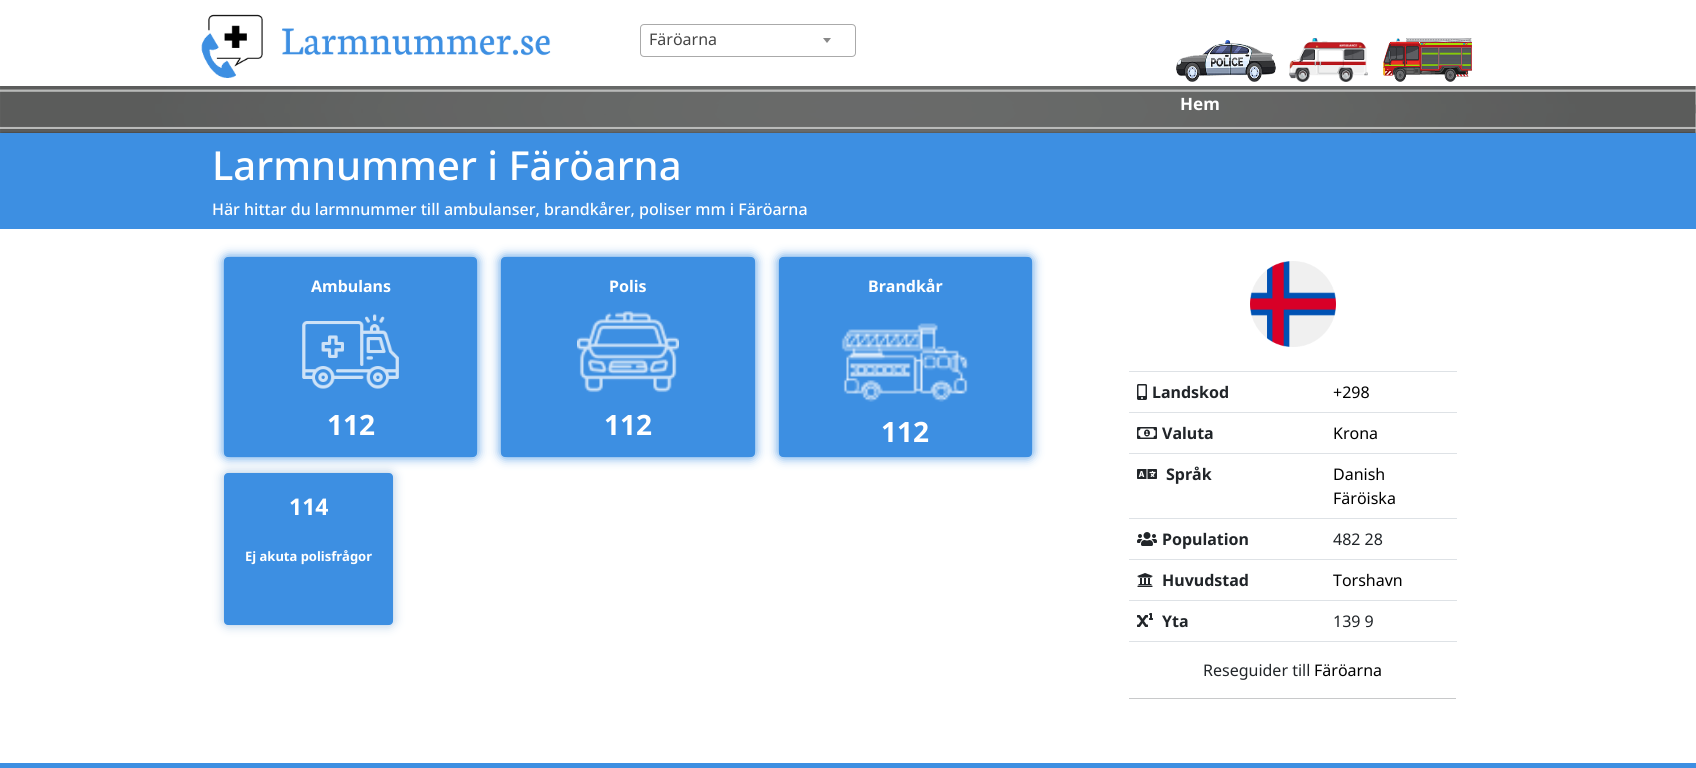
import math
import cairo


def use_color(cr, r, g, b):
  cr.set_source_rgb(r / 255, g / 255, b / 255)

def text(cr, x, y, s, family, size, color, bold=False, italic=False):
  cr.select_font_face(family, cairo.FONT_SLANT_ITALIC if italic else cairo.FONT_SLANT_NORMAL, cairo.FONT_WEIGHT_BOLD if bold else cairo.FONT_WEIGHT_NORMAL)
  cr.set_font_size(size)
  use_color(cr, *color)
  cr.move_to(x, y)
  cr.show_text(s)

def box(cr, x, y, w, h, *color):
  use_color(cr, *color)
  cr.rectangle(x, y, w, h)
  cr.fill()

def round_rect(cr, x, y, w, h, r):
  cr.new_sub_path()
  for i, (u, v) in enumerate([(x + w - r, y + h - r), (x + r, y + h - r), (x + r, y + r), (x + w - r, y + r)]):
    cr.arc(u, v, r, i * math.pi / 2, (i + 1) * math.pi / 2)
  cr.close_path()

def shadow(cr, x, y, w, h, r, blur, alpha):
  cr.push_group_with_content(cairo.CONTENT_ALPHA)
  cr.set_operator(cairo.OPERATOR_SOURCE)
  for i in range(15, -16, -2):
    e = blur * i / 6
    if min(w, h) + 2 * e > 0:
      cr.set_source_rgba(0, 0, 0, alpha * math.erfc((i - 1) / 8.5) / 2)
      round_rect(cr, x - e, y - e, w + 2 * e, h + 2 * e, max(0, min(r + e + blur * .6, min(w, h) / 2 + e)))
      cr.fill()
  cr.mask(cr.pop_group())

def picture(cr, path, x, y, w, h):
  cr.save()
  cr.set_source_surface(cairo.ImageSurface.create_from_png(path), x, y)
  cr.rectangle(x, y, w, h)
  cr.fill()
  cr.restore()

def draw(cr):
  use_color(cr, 255, 255, 255)
  cr.paint()
  picture(cr, "img_01.png", 201, 14, 350, 64)
  round_rect(cr, 640.5, 24.5, 215, 32, 3.5)
  use_color(cr, 170, 170, 170)
  cr.set_line_width(1)
  cr.stroke()
  use_color(cr, 136, 136, 136)
  cr.new_path()
  cr.move_to(823, 38)
  cr.line_to(831, 38)
  cr.line_to(827, 43)
  cr.close_path()
  cr.fill()
  picture(cr, "img_02.png", 1176, 40, 100, 42)
  picture(cr, "img_03.png", 1289, 38, 79, 44)
  picture(cr, "img_04.png", 1383, 38, 89, 44)
  picture(cr, "img_05.png", 0, 86, 1696, 47)
  box(cr, 0, 133, 1696, 96, 61, 143, 226)
  use_color(cr, 61, 143, 226)
  shadow(cr, 224, 257, 253, 200, 4, 5.5, 1)
  use_color(cr, 61, 143, 226)
  round_rect(cr, 224, 257, 253, 200, 4)
  cr.fill()
  picture(cr, "img_06.png", 302, 314, 97, 75)
  use_color(cr, 61, 143, 226)
  shadow(cr, 501, 257, 254, 200, 4, 5.5, 1)
  use_color(cr, 61, 143, 226)
  round_rect(cr, 501, 257, 254, 200, 4)
  cr.fill()
  picture(cr, "img_07.png", 577, 311, 102, 82)
  use_color(cr, 61, 143, 226)
  shadow(cr, 779, 257, 253, 200, 4, 5.5, 1)
  use_color(cr, 61, 143, 226)
  round_rect(cr, 779, 257, 253, 200, 4)
  cr.fill()
  picture(cr, "img_08.png", 841, 323, 128, 79)
  use_color(cr, 165, 195, 225)
  shadow(cr, 224, 473, 169, 152, 4, 5.5, 1)
  use_color(cr, 61, 143, 226)
  round_rect(cr, 224, 473, 169, 152, 4)
  cr.fill()
  box(cr, 1129, 371, 328, 1, 222, 226, 230)
  picture(cr, "img_09.png", 1250, 261, 86, 86)
  picture(cr, "img_10.png", 1137, 384, 10, 16)
  box(cr, 1129, 412, 328, 1, 222, 226, 230)
  picture(cr, "img_11.png", 1137, 427, 20, 12)
  box(cr, 1129, 453, 328, 1, 222, 226, 230)
  picture(cr, "img_12.png", 1137, 469, 20, 10)
  box(cr, 1129, 518, 328, 1, 222, 226, 230)
  picture(cr, "img_13.png", 1137, 532, 20, 14)
  box(cr, 1129, 559, 328, 1, 222, 226, 230)
  picture(cr, "img_14.png", 1137, 573, 16, 14)
  box(cr, 1129, 600, 328, 1, 222, 226, 230)
  picture(cr, "img_15.png", 1137, 613, 16, 14)
  box(cr, 1129, 641, 328, 1, 222, 226, 230)
  box(cr, 1129, 698, 327, 1, 200, 201, 202)
  box(cr, 0, 763, 1696, 5, 61, 143, 226)
  text(cr, 649, 45, "Färöarna", "Noto Sans", 16, (68, 68, 68))
  text(cr, 1180, 110, "Hem", "Noto Sans", 17, (255, 255, 255), bold=True)
  text(cr, 212, 180, "Larmnummer i Färöarna", "Noto Sans Medium", 40, (255, 255, 255))
  text(cr, 212, 215, "Här hittar du larmnummer till ambulanser, brandkårer, poliser mm i Färöarna", "Noto Sans Medium", 16, (255, 255, 255))
  text(cr, 311, 292, "Ambulans", "Noto Sans", 16, (255, 255, 255), bold=True)
  text(cr, 327, 435, "112", "Noto Sans", 28, (255, 255, 255), bold=True)
  text(cr, 609, 292, "Polis", "Noto Sans", 16, (255, 255, 255), bold=True)
  text(cr, 604, 435, "112", "Noto Sans", 28, (255, 255, 255), bold=True)
  text(cr, 868, 292, "Brandkår", "Noto Sans", 16, (255, 255, 255), bold=True)
  text(cr, 881, 442, "112", "Noto Sans", 28, (255, 255, 255), bold=True)
  text(cr, 289, 515, "114", "Noto Sans", 23, (255, 255, 255), bold=True)
  text(cr, 245, 561, "Ej akuta polisfrågor", "Noto Sans", 13, (255, 255, 255), bold=True)
  text(cr, 1152, 398, "Landskod", "Noto Sans", 16, (33, 37, 41), bold=True)
  text(cr, 1333, 398, "+298", "Noto Sans", 16, (0, 0, 0))
  text(cr, 1162, 439, "Valuta", "Noto Sans", 16, (33, 37, 41), bold=True)
  text(cr, 1333, 439, "Krona", "Noto Sans", 16, (0, 0, 0))
  text(cr, 1166, 480, "Språk", "Noto Sans", 16, (33, 37, 41), bold=True)
  text(cr, 1333, 480, "Danish", "Noto Sans", 16, (0, 0, 0))
  text(cr, 1333, 504, "Färöiska", "Noto Sans", 16, (0, 0, 0))
  text(cr, 1162, 545, "Population", "Noto Sans", 16, (33, 37, 41), bold=True)
  text(cr, 1333, 545, "482 28", "Noto Sans", 16, (33, 37, 41))
  text(cr, 1162, 586, "Huvudstad", "Noto Sans", 16, (33, 37, 41), bold=True)
  text(cr, 1333, 586, "Torshavn", "Noto Sans", 16, (0, 0, 0))
  text(cr, 1162, 627, "Yta", "Noto Sans", 16, (33, 37, 41), bold=True)
  text(cr, 1333, 627, "139 9", "Noto Sans", 16, (33, 37, 41))
  text(cr, 1203, 676, "Reseguider till", "Noto Sans", 16, (33, 37, 41))
  text(cr, 1314, 676, "Färöarna", "Noto Sans", 16, (0, 0, 0))


surface = cairo.ImageSurface(cairo.FORMAT_RGB24, 1696, 768)
cr = cairo.Context(surface)
options = cairo.FontOptions()
options.set_hint_metrics(cairo.HINT_METRICS_OFF)
options.set_hint_style(cairo.HINT_STYLE_NONE)
cr.set_font_options(options)
cr.set_miter_limit(4)
draw(cr)
surface.write_to_png("out.png")
